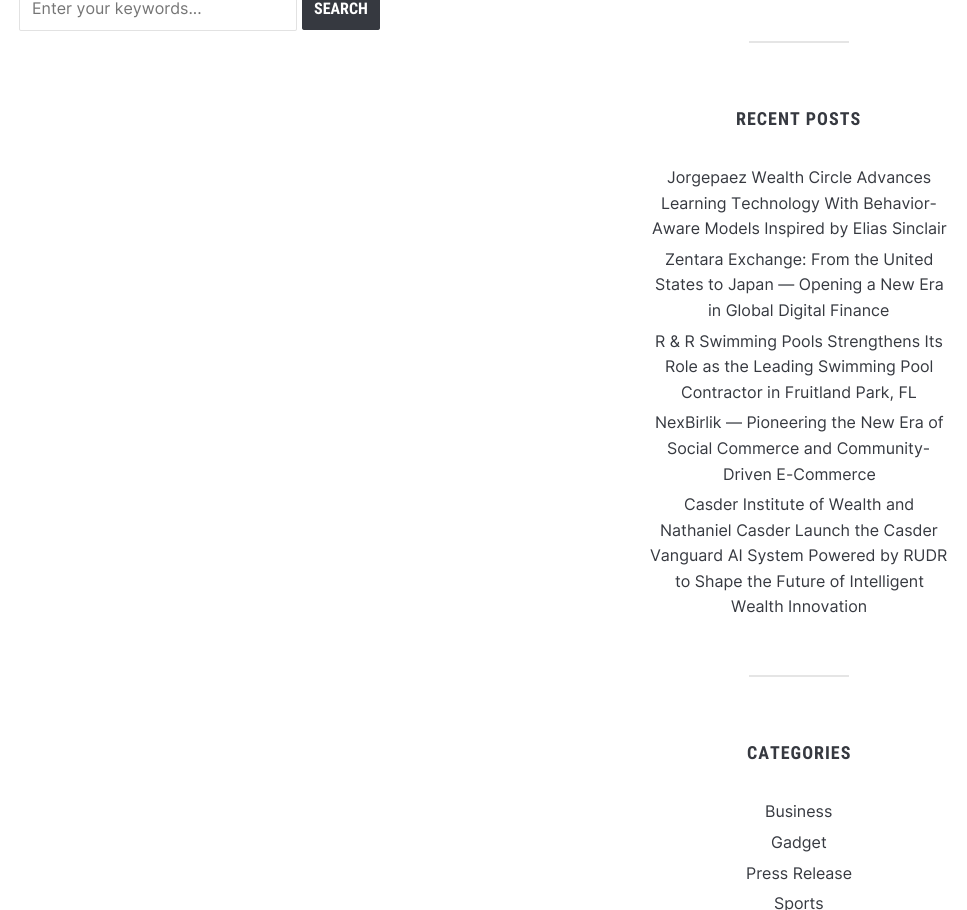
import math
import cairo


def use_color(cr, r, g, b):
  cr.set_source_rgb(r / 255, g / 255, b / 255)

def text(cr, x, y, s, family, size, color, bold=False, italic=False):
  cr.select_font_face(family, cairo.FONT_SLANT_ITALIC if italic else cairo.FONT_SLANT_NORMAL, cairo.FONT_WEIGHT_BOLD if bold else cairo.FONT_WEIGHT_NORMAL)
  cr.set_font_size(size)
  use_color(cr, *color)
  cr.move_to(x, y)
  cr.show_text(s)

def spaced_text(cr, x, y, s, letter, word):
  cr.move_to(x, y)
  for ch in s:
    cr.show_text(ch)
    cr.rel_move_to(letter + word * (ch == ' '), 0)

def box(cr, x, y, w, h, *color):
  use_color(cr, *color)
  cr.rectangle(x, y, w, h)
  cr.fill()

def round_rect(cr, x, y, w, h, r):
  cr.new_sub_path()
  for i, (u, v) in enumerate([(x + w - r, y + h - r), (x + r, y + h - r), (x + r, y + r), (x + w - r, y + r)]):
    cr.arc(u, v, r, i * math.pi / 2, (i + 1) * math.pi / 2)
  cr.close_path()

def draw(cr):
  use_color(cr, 255, 255, 255)
  cr.paint()
  round_rect(cr, 19.5, -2.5, 277, 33, 1.5)
  use_color(cr, 226, 226, 226)
  cr.set_line_width(1)
  cr.stroke()
  use_color(cr, 54, 57, 64)
  round_rect(cr, 302, -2, 78, 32, 2)
  cr.fill()
  box(cr, 749, 41, 100, 2, 229, 229, 229)
  box(cr, 749, 675, 100, 2, 229, 229, 229)
  text(cr, 32, 14, "Enter your keywords...", "Inter", 16, (117, 117, 117))
  text(cr, 314, 14, "SEARCH", "Roboto Condensed", 16, (255, 255, 255), bold=True)
  cr.set_font_size(18)
  use_color(cr, 54, 57, 64)
  spaced_text(cr, 736, 125, "RECENT POSTS", 1, 0)
  text(cr, 667, 183, "Jorgepaez Wealth Circle Advances", "Inter", 16, (54, 57, 64))
  text(cr, 661, 209, "Learning Technology With Behavior-", "Inter", 16, (54, 57, 64))
  text(cr, 652, 234, "Aware Models Inspired by Elias Sinclair", "Inter", 16, (54, 57, 64))
  text(cr, 665, 265, "Zentara Exchange: From the United", "Inter", 16, (54, 57, 64))
  text(cr, 655, 290, "States to Japan — Opening a New Era", "Inter", 16, (54, 57, 64))
  text(cr, 708, 316, "in Global Digital Finance", "Inter", 16, (54, 57, 64))
  text(cr, 655, 347, "R & R Swimming Pools Strengthens Its", "Inter", 16, (54, 57, 64))
  text(cr, 665, 372, "Role as the Leading Swimming Pool", "Inter", 16, (54, 57, 64))
  text(cr, 681, 398, "Contractor in Fruitland Park, FL", "Inter", 16, (54, 57, 64))
  text(cr, 655, 428, "NexBirlik — Pioneering the New Era of", "Inter", 16, (54, 57, 64))
  text(cr, 667, 454, "Social Commerce and Community-", "Inter", 16, (54, 57, 64))
  text(cr, 723, 480, "Driven E-Commerce", "Inter", 16, (54, 57, 64))
  text(cr, 684, 510, "Casder Institute of Wealth and", "Inter", 16, (54, 57, 64))
  text(cr, 660, 536, "Nathaniel Casder Launch the Casder", "Inter", 16, (54, 57, 64))
  text(cr, 650, 561, "Vanguard AI System Powered by RUDR", "Inter", 16, (54, 57, 64))
  text(cr, 675, 587, "to Shape the Future of Intelligent", "Inter", 16, (54, 57, 64))
  text(cr, 731, 612, "Wealth Innovation", "Inter", 16, (54, 57, 64))
  cr.select_font_face("Roboto Condensed", cairo.FONT_SLANT_NORMAL, cairo.FONT_WEIGHT_BOLD)
  cr.set_font_size(18)
  spaced_text(cr, 747, 759, "CATEGORIES", 1, 0)
  text(cr, 765, 817, "Business", "Inter", 16, (54, 57, 64))
  text(cr, 771, 848, "Gadget", "Inter", 16, (54, 57, 64))
  text(cr, 746, 879, "Press Release", "Inter", 16, (54, 57, 64))
  text(cr, 774, 909, "Sports", "Inter", 16, (54, 57, 64))


surface = cairo.ImageSurface(cairo.FORMAT_RGB24, 967, 910)
cr = cairo.Context(surface)
options = cairo.FontOptions()
options.set_hint_metrics(cairo.HINT_METRICS_OFF)
options.set_hint_style(cairo.HINT_STYLE_NONE)
cr.set_font_options(options)
cr.set_miter_limit(4)
draw(cr)
surface.write_to_png("out.png")
